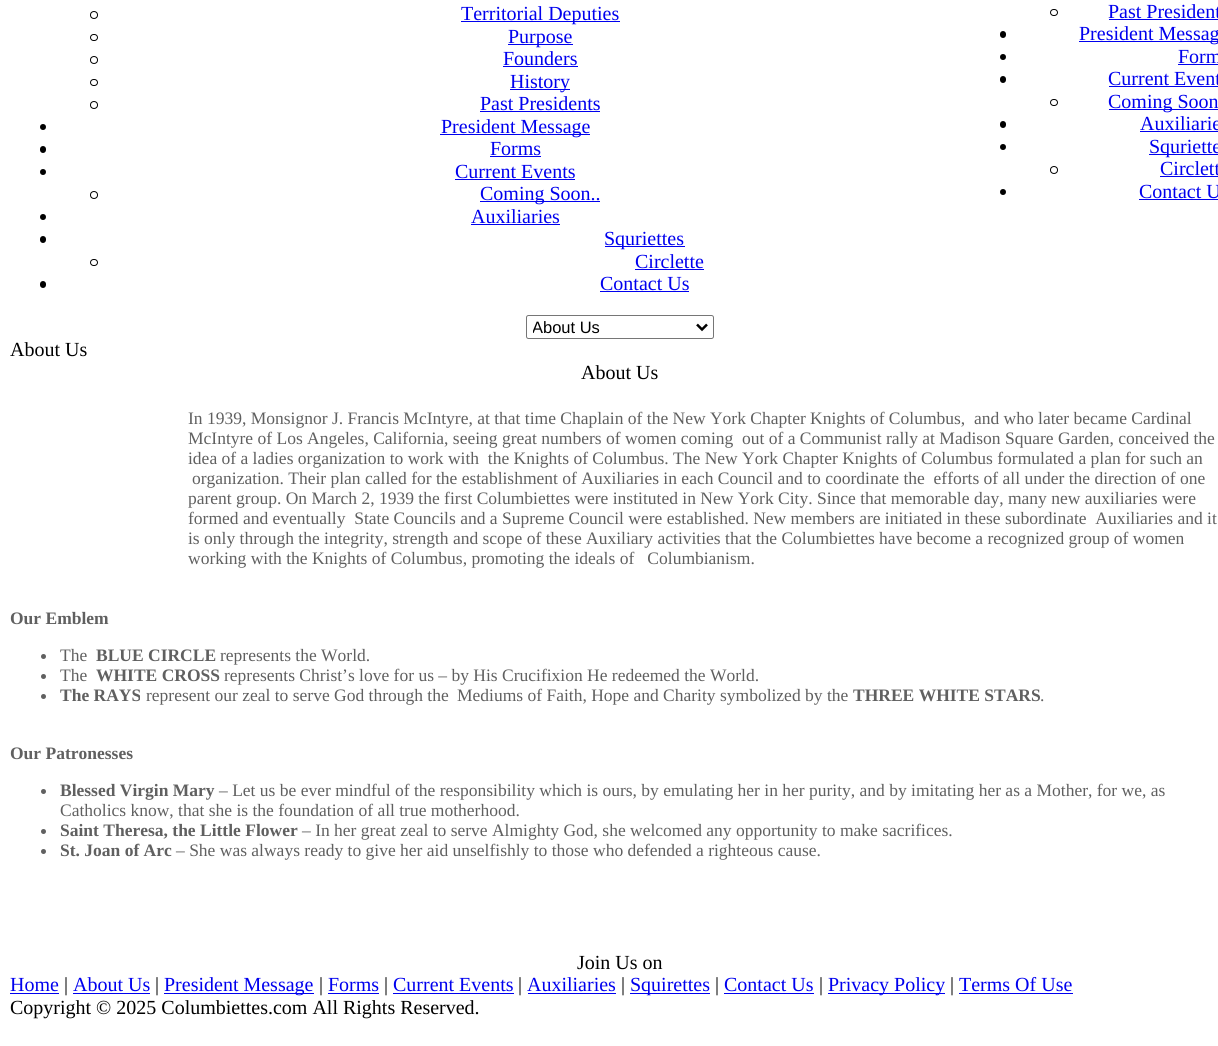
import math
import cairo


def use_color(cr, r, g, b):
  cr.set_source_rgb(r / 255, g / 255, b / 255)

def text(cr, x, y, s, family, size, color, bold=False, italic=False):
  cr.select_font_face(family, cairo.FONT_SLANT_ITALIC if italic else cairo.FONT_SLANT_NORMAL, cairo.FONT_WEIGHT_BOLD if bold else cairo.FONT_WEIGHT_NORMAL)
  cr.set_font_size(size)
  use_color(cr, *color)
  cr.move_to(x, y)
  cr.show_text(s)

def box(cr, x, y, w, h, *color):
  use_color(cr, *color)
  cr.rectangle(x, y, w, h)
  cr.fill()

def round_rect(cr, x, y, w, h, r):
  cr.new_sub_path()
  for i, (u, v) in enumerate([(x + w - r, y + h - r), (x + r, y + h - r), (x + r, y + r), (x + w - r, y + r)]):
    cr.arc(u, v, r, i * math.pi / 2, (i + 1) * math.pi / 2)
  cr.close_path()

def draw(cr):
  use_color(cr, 255, 255, 255)
  cr.paint()
  cr.arc(94, 15, 3.5, 0, 2 * math.pi)
  use_color(cr, 0, 0, 0)
  cr.set_line_width(1)
  cr.stroke()
  box(cr, 461, 21, 159, 1, 0, 0, 238)
  round_rect(cr, 90.5, 34.5, 7, 6, 3)
  use_color(cr, 0, 0, 0)
  cr.stroke()
  box(cr, 508, 44, 65, 1, 0, 0, 238)
  cr.arc(94, 60, 3.5, 0, 2 * math.pi)
  use_color(cr, 0, 0, 0)
  cr.stroke()
  box(cr, 503, 66, 75, 1, 0, 0, 238)
  round_rect(cr, 90.5, 79.5, 7, 6, 3)
  use_color(cr, 0, 0, 0)
  cr.stroke()
  box(cr, 510, 89, 60, 1, 0, 0, 238)
  cr.arc(94, 105, 3.5, 0, 2 * math.pi)
  use_color(cr, 0, 0, 0)
  cr.stroke()
  box(cr, 480, 111, 120, 1, 0, 0, 238)
  use_color(cr, 0, 0, 0)
  cr.arc(43, 127, 3, 0, 2 * math.pi)
  cr.fill()
  box(cr, 440, 134, 150, 1, 0, 0, 238)
  use_color(cr, 0, 0, 0)
  round_rect(cr, 40, 146, 6, 7, 3)
  cr.fill()
  box(cr, 490, 156, 51, 1, 0, 0, 238)
  use_color(cr, 0, 0, 0)
  cr.arc(43, 172, 3, 0, 2 * math.pi)
  cr.fill()
  box(cr, 455, 179, 120, 1, 0, 0, 238)
  cr.arc(94, 195, 3.5, 0, 2 * math.pi)
  use_color(cr, 0, 0, 0)
  cr.stroke()
  box(cr, 480, 201, 120, 1, 0, 0, 238)
  use_color(cr, 0, 0, 0)
  cr.arc(43, 217, 3, 0, 2 * math.pi)
  cr.fill()
  box(cr, 471, 224, 89, 1, 0, 0, 238)
  use_color(cr, 0, 0, 0)
  round_rect(cr, 40, 236, 6, 7, 3)
  cr.fill()
  box(cr, 605, 246, 80, 1, 0, 0, 238)
  round_rect(cr, 90.5, 259.5, 7, 6, 3)
  use_color(cr, 0, 0, 0)
  cr.stroke()
  box(cr, 635, 269, 69, 1, 0, 0, 238)
  use_color(cr, 0, 0, 0)
  round_rect(cr, 40, 281, 6, 7, 3)
  cr.fill()
  box(cr, 600, 291, 89, 1, 0, 0, 238)
  round_rect(cr, 1050.5, 9.5, 7, 6, 3)
  use_color(cr, 0, 0, 0)
  cr.stroke()
  box(cr, 1109, 19, 109, 1, 0, 0, 238)
  use_color(cr, 0, 0, 0)
  round_rect(cr, 1000, 31, 6, 7, 3)
  cr.fill()
  box(cr, 1079, 41, 139, 1, 0, 0, 238)
  use_color(cr, 0, 0, 0)
  cr.arc(1003, 57, 3, 0, 2 * math.pi)
  cr.fill()
  box(cr, 1178, 64, 40, 1, 0, 0, 238)
  use_color(cr, 0, 0, 0)
  round_rect(cr, 1000, 76, 6, 7, 3)
  cr.fill()
  box(cr, 1109, 86, 109, 1, 0, 0, 238)
  round_rect(cr, 1050.5, 99.5, 7, 6, 3)
  use_color(cr, 0, 0, 0)
  cr.stroke()
  box(cr, 1109, 109, 109, 1, 0, 0, 238)
  use_color(cr, 0, 0, 0)
  round_rect(cr, 1000, 121, 6, 7, 3)
  cr.fill()
  box(cr, 1140, 131, 78, 1, 0, 0, 238)
  use_color(cr, 0, 0, 0)
  cr.arc(1003, 147, 3, 0, 2 * math.pi)
  cr.fill()
  box(cr, 1149, 154, 69, 1, 0, 0, 238)
  cr.arc(1054, 170, 3.5, 0, 2 * math.pi)
  use_color(cr, 0, 0, 0)
  cr.stroke()
  box(cr, 1160, 176, 58, 1, 0, 0, 238)
  use_color(cr, 0, 0, 0)
  cr.arc(1003, 192, 3, 0, 2 * math.pi)
  cr.fill()
  box(cr, 1139, 199, 79, 1, 0, 0, 238)
  round_rect(cr, 526.5, 315.5, 187, 23, 2)
  use_color(cr, 118, 118, 118)
  cr.stroke()
  cr.new_path()
  cr.move_to(697, 324.5)
  cr.line_to(702, 329.5)
  cr.line_to(707, 324.5)
  use_color(cr, 0, 0, 0)
  cr.set_line_width(2.5)
  cr.stroke()
  use_color(cr, 96, 96, 96)
  cr.arc(43.5, 656.5, 2.5, 0, 2 * math.pi)
  cr.fill()
  cr.arc(43.5, 676.5, 2.5, 0, 2 * math.pi)
  cr.fill()
  cr.arc(43.5, 696.5, 2.5, 0, 2 * math.pi)
  cr.fill()
  cr.arc(43.5, 791.5, 2.5, 0, 2 * math.pi)
  cr.fill()
  cr.arc(43.5, 831.5, 2.5, 0, 2 * math.pi)
  cr.fill()
  cr.arc(43.5, 851.5, 2.5, 0, 2 * math.pi)
  cr.fill()
  box(cr, 10, 993, 49, 1, 0, 0, 238)
  box(cr, 73, 993, 77, 1, 0, 0, 238)
  box(cr, 164, 993, 150, 1, 0, 0, 238)
  box(cr, 328, 993, 51, 1, 0, 0, 238)
  box(cr, 393, 993, 121, 1, 0, 0, 238)
  box(cr, 528, 993, 88, 1, 0, 0, 238)
  box(cr, 630, 993, 80, 1, 0, 0, 238)
  box(cr, 724, 993, 90, 1, 0, 0, 238)
  box(cr, 828, 993, 117, 1, 0, 0, 238)
  box(cr, 959, 993, 114, 1, 0, 0, 238)
  text(cr, 461, 20, "Territorial Deputies", "Liberation Serif", 20, (0, 0, 238))
  text(cr, 508, 43, "Purpose", "Liberation Serif", 20, (0, 0, 238))
  text(cr, 503, 65, "Founders", "Liberation Serif", 20, (0, 0, 238))
  text(cr, 510, 88, "History", "Liberation Serif", 20, (0, 0, 238))
  text(cr, 480, 110, "Past Presidents", "Liberation Serif", 20, (0, 0, 238))
  text(cr, 441, 133, "President Message", "Liberation Serif", 20, (0, 0, 238))
  text(cr, 490, 155, "Forms", "Liberation Serif", 20, (0, 0, 238))
  text(cr, 455, 178, "Current Events", "Liberation Serif", 20, (0, 0, 238))
  text(cr, 480, 200, "Coming Soon..", "Liberation Serif", 20, (0, 0, 238))
  text(cr, 471, 223, "Auxiliaries", "Liberation Serif", 20, (0, 0, 238))
  text(cr, 604, 245, "Squriettes", "Liberation Serif", 20, (0, 0, 238))
  text(cr, 635, 268, "Circlette", "Liberation Serif", 20, (0, 0, 238))
  text(cr, 600, 290, "Contact Us", "Liberation Serif", 20, (0, 0, 238))
  text(cr, 1108, 18, "Past President", "Liberation Serif", 20, (0, 0, 238))
  text(cr, 1079, 40, "President Messag", "Liberation Serif", 20, (0, 0, 238))
  text(cr, 1178, 63, "Form", "Liberation Serif", 20, (0, 0, 238))
  text(cr, 1108, 85, "Current Event", "Liberation Serif", 20, (0, 0, 238))
  text(cr, 1108, 108, "Coming Soon", "Liberation Serif", 20, (0, 0, 238))
  text(cr, 1140, 130, "Auxiliarie", "Liberation Serif", 20, (0, 0, 238))
  text(cr, 1149, 153, "Squriette", "Liberation Serif", 20, (0, 0, 238))
  text(cr, 1160, 175, "Circlett", "Liberation Serif", 20, (0, 0, 238))
  text(cr, 1139, 198, "Contact U", "Liberation Serif", 20, (0, 0, 238))
  cr.save()
  cr.rectangle(533, 316, 160, 22)
  cr.clip()
  text(cr, 532, 333, "About Us", "Liberation Sans", 16.5, (0, 0, 0))
  cr.restore()
  text(cr, 10, 356, "About Us", "Liberation Serif", 20, (0, 0, 0))
  text(cr, 581, 379, "About Us", "Liberation Serif", 20, (0, 0, 0))
  text(cr, 188, 424, "In 1939, Monsignor J. Francis McIntyre, at that time Chaplain of the New York Chapter Knights of Columbus,  and who later became Cardinal", "Liberation Serif", 17.5, (96, 96, 96))
  text(cr, 188, 444, "McIntyre of Los Angeles, California, seeing great numbers of women coming  out of a Communist rally at Madison Square Garden, conceived the", "Liberation Serif", 17.5, (96, 96, 96))
  text(cr, 188, 464, "idea of a ladies organization to work with  the Knights of Columbus. The New York Chapter Knights of Columbus formulated a plan for such an", "Liberation Serif", 17.5, (96, 96, 96))
  text(cr, 192, 484, "organization. Their plan called for the establishment of Auxiliaries in each Council and to coordinate the  efforts of all under the direction of one", "Liberation Serif", 17.5, (96, 96, 96))
  text(cr, 188, 504, "parent group. On March 2, 1939 the first Columbiettes were instituted in New York City. Since that memorable day, many new auxiliaries were", "Liberation Serif", 17.5, (96, 96, 96))
  text(cr, 188, 524, "formed and eventually  State Councils and a Supreme Council were established. New members are initiated in these subordinate  Auxiliaries and it", "Liberation Serif", 17.5, (96, 96, 96))
  text(cr, 188, 544, "is only through the integrity, strength and scope of these Auxiliary activities that the Columbiettes have become a recognized group of women", "Liberation Serif", 17.5, (96, 96, 96))
  text(cr, 188, 564, "working with the Knights of Columbus, promoting the ideals of   Columbianism.", "Liberation Serif", 17.5, (96, 96, 96))
  text(cr, 10, 624, "Our Emblem", "Liberation Serif", 17.5, (96, 96, 96), bold=True)
  text(cr, 60, 661, "The", "Liberation Serif", 17.5, (96, 96, 96))
  text(cr, 96, 661, "BLUE CIRCLE", "Liberation Serif", 17.5, (96, 96, 96), bold=True)
  text(cr, 220, 661, "represents the World.", "Liberation Serif", 17.5, (96, 96, 96))
  text(cr, 60, 681, "The", "Liberation Serif", 17.5, (96, 96, 96))
  text(cr, 96, 681, "WHITE CROSS", "Liberation Serif", 17.5, (96, 96, 96), bold=True)
  text(cr, 224, 681, "represents Christ’s love for us – by His Crucifixion He redeemed the World.", "Liberation Serif", 17.5, (96, 96, 96))
  text(cr, 60, 701, "The RAYS", "Liberation Serif", 17.5, (96, 96, 96), bold=True)
  text(cr, 146, 701, "represent our zeal to serve God through the", "Liberation Serif", 17.5, (96, 96, 96))
  text(cr, 457, 701, "Mediums of Faith, Hope and Charity symbolized by the", "Liberation Serif", 17.5, (96, 96, 96))
  text(cr, 853, 701, "THREE WHITE STARS", "Liberation Serif", 17.5, (96, 96, 96), bold=True)
  text(cr, 1040, 701, ".", "Liberation Serif", 17.5, (96, 96, 96))
  text(cr, 10, 759, "Our Patronesses", "Liberation Serif", 17.5, (96, 96, 96), bold=True)
  text(cr, 60, 796, "Blessed Virgin Mary", "Liberation Serif", 17.5, (96, 96, 96), bold=True)
  text(cr, 219, 796, "– Let us be ever mindful of the responsibility which is ours, by emulating her in her purity, and by imitating her as a Mother, for we, as", "Liberation Serif", 17.5, (96, 96, 96))
  text(cr, 60, 816, "Catholics know, that she is the foundation of all true motherhood.", "Liberation Serif", 17.5, (96, 96, 96))
  text(cr, 60, 836, "Saint Theresa, the Little Flower", "Liberation Serif", 17.5, (96, 96, 96), bold=True)
  text(cr, 302, 836, "– In her great zeal to serve Almighty God, she welcomed any opportunity to make sacrifices.", "Liberation Serif", 17.5, (96, 96, 96))
  text(cr, 60, 856, "St. Joan of Arc", "Liberation Serif", 17.5, (96, 96, 96), bold=True)
  text(cr, 176, 856, "– She was always ready to give her aid unselfishly to those who defended a righteous cause.", "Liberation Serif", 17.5, (96, 96, 96))
  text(cr, 577, 969, "Join Us on", "Liberation Serif", 20, (0, 0, 0))
  text(cr, 10, 991, "Home", "Liberation Serif", 20, (0, 0, 238))
  text(cr, 64, 991, "|", "Liberation Serif", 20, (0, 0, 0))
  text(cr, 73, 991, "About Us", "Liberation Serif", 20, (0, 0, 238))
  text(cr, 155, 991, "|", "Liberation Serif", 20, (0, 0, 0))
  text(cr, 164, 991, "President Message", "Liberation Serif", 20, (0, 0, 238))
  text(cr, 319, 991, "|", "Liberation Serif", 20, (0, 0, 0))
  text(cr, 328, 991, "Forms", "Liberation Serif", 20, (0, 0, 238))
  text(cr, 384, 991, "|", "Liberation Serif", 20, (0, 0, 0))
  text(cr, 393, 991, "Current Events", "Liberation Serif", 20, (0, 0, 238))
  text(cr, 518, 991, "|", "Liberation Serif", 20, (0, 0, 0))
  text(cr, 527, 991, "Auxiliaries", "Liberation Serif", 20, (0, 0, 238))
  text(cr, 621, 991, "|", "Liberation Serif", 20, (0, 0, 0))
  text(cr, 630, 991, "Squirettes", "Liberation Serif", 20, (0, 0, 238))
  text(cr, 715, 991, "|", "Liberation Serif", 20, (0, 0, 0))
  text(cr, 724, 991, "Contact Us", "Liberation Serif", 20, (0, 0, 238))
  text(cr, 819, 991, "|", "Liberation Serif", 20, (0, 0, 0))
  text(cr, 828, 991, "Privacy Policy", "Liberation Serif", 20, (0, 0, 238))
  text(cr, 950, 991, "|", "Liberation Serif", 20, (0, 0, 0))
  text(cr, 959, 991, "Terms Of Use", "Liberation Serif", 20, (0, 0, 238))
  text(cr, 10, 1014, "Copyright © 2025 Columbiettes.com All Rights Reserved.", "Liberation Serif", 20, (0, 0, 0))


surface = cairo.ImageSurface(cairo.FORMAT_RGB24, 1218, 1046)
cr = cairo.Context(surface)
options = cairo.FontOptions()
options.set_hint_metrics(cairo.HINT_METRICS_OFF)
options.set_hint_style(cairo.HINT_STYLE_NONE)
cr.set_font_options(options)
cr.set_miter_limit(4)
draw(cr)
surface.write_to_png("out.png")
